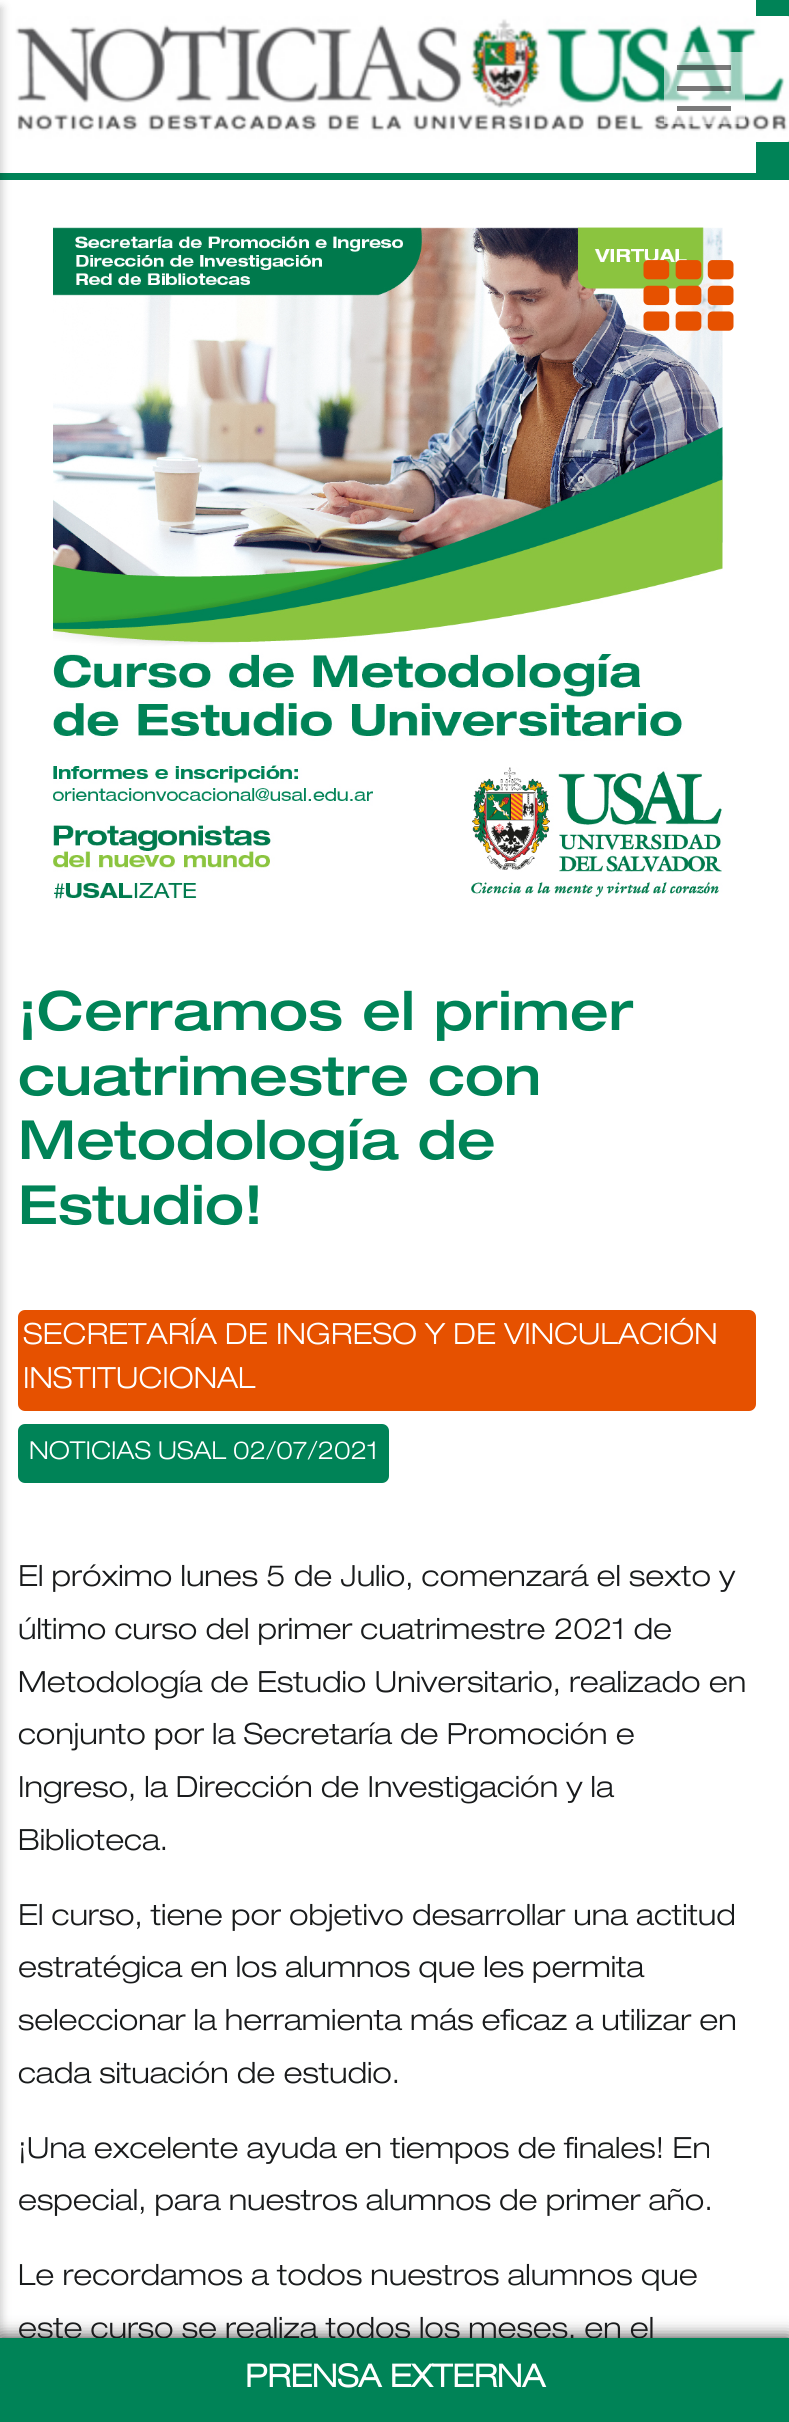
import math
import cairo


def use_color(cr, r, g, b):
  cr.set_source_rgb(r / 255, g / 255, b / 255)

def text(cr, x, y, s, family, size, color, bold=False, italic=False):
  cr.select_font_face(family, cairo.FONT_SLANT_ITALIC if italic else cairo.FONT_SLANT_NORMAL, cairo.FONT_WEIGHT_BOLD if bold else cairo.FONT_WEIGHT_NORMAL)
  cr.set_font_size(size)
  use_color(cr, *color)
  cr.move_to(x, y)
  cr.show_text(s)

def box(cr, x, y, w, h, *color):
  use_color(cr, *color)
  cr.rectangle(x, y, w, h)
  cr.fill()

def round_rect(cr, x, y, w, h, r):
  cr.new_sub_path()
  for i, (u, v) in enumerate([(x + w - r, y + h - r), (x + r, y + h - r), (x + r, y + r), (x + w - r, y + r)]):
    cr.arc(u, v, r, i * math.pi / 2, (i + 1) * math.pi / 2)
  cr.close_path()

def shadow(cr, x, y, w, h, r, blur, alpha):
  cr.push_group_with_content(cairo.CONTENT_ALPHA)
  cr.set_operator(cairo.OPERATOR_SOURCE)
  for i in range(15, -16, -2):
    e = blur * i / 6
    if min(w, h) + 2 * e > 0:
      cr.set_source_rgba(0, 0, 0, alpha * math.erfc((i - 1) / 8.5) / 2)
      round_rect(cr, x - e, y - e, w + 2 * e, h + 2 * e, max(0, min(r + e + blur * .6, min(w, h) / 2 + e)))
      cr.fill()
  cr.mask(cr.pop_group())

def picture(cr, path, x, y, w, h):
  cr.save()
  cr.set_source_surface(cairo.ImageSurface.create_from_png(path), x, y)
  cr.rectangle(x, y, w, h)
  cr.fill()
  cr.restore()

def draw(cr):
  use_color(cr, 255, 255, 255)
  cr.paint()
  box(cr, 756, 0, 33, 173, 0, 131, 87)
  box(cr, 0, 173, 789, 7, 0, 131, 87)
  picture(cr, "img_01.png", 15, 16, 774, 126)
  use_color(cr, 0, 0, 0)
  shadow(cr, -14, 7, 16, 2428, 0, 4.5, 0.2)
  cr.set_source_rgba(1, 1, 1, 0.6)
  cr.rectangle(664, 52, 81, 72)
  cr.fill()
  cr.set_source_rgba(0.133, 0.133, 0.133, 0.6)
  cr.rectangle(677, 65, 54, 5)
  cr.fill()
  cr.rectangle(677, 86, 54, 5)
  cr.fill()
  box(cr, 677, 106, 54, 5, 122, 122, 122)
  picture(cr, "img_02.png", 53, 227, 670, 672)
  picture(cr, "img_03.png", 643, 260, 91, 71)
  use_color(cr, 230, 81, 0)
  round_rect(cr, 18, 1310, 738, 101, 7)
  cr.fill()
  use_color(cr, 0, 131, 87)
  round_rect(cr, 18, 1424, 371, 59, 7)
  cr.fill()
  use_color(cr, 0, 0, 0)
  shadow(cr, 0, 2338, 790, 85, 0, 9, 0.8)
  text(cr, 18, 1030, "¡Cerramos el primer", "Helvetica Neue Medium", 54, (0, 131, 87))
  text(cr, 18, 1095, "cuatrimestre con", "Helvetica Neue Medium", 54, (0, 131, 87))
  text(cr, 18, 1159, "Metodología de", "Helvetica Neue Medium", 54, (0, 131, 87))
  text(cr, 18, 1224, "Estudio!", "Helvetica Neue Medium", 54, (0, 131, 87))
  text(cr, 23, 1344, "SECRETARÍA DE INGRESO Y DE VINCULACIÓN", "Helvetica Neue Light", 29.25, (255, 255, 255))
  text(cr, 23, 1388, "INSTITUCIONAL", "Helvetica Neue Light", 29.25, (255, 255, 255))
  text(cr, 29, 1459, "NOTICIAS USAL 02/07/2021", "Helvetica Neue Light", 24.75, (255, 255, 255))
  text(cr, 18, 1586, "El próximo lunes 5 de Julio, comenzará el sexto y", "Helvetica Neue Light", 29.25, (25, 27, 28))
  text(cr, 18, 1639, "último curso del primer cuatrimestre 2021 de", "Helvetica Neue Light", 29.25, (25, 27, 28))
  text(cr, 18, 1692, "Metodología de Estudio Universitario, realizado en", "Helvetica Neue Light", 29.25, (25, 27, 28))
  text(cr, 18, 1744, "conjunto por la Secretaría de Promoción e", "Helvetica Neue Light", 29.25, (25, 27, 28))
  text(cr, 18, 1797, "Ingreso, la Dirección de Investigación y la", "Helvetica Neue Light", 29.25, (25, 27, 28))
  text(cr, 18, 1850, "Biblioteca.", "Helvetica Neue Light", 29.25, (25, 27, 28))
  text(cr, 18, 1925, "El curso, tiene por objetivo desarrollar una actitud", "Helvetica Neue Light", 29.25, (25, 27, 28))
  text(cr, 18, 1977, "estratégica en los alumnos que les permita", "Helvetica Neue Light", 29.25, (25, 27, 28))
  text(cr, 18, 2030, "seleccionar la herramienta más eficaz a utilizar en", "Helvetica Neue Light", 29.25, (25, 27, 28))
  text(cr, 18, 2083, "cada situación de estudio.", "Helvetica Neue Light", 29.25, (25, 27, 28))
  text(cr, 18, 2158, "¡Una excelente ayuda en tiempos de finales! En", "Helvetica Neue Light", 29.25, (25, 27, 28))
  text(cr, 18, 2210, "especial, para nuestros alumnos de primer año.", "Helvetica Neue Light", 29.25, (25, 27, 28))
  text(cr, 18, 2285, "Le recordamos a todos nuestros alumnos que", "Helvetica Neue Light", 29.25, (25, 27, 28))
  text(cr, 18, 2338, "este curso se realiza todos los meses, en el", "Helvetica Neue Light", 29.25, (25, 27, 28))
  box(cr, 0, 2338, 789, 84, 0, 131, 87)
  text(cr, 245, 2387, "PRENSA EXTERNA", "Helvetica Neue", 31.5, (255, 255, 255), bold=True)


surface = cairo.ImageSurface(cairo.FORMAT_RGB24, 789, 2422)
cr = cairo.Context(surface)
options = cairo.FontOptions()
options.set_hint_metrics(cairo.HINT_METRICS_OFF)
options.set_hint_style(cairo.HINT_STYLE_NONE)
cr.set_font_options(options)
cr.set_miter_limit(4)
draw(cr)
surface.write_to_png("out.png")
